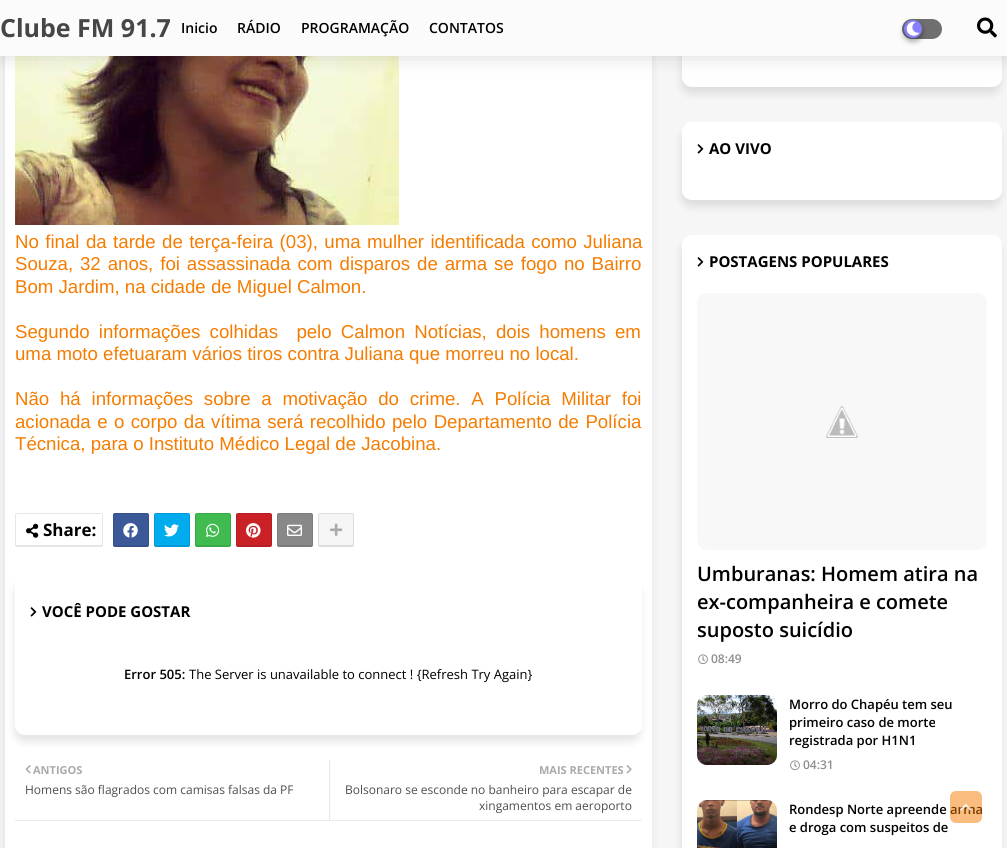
import math
import cairo


def use_color(cr, r, g, b):
  cr.set_source_rgb(r / 255, g / 255, b / 255)

def text(cr, x, y, s, family, size, color, bold=False, italic=False):
  cr.select_font_face(family, cairo.FONT_SLANT_ITALIC if italic else cairo.FONT_SLANT_NORMAL, cairo.FONT_WEIGHT_BOLD if bold else cairo.FONT_WEIGHT_NORMAL)
  cr.set_font_size(size)
  use_color(cr, *color)
  cr.move_to(x, y)
  cr.show_text(s)

def spaced_text(cr, x, y, s, letter, word):
  cr.move_to(x, y)
  for ch in s:
    cr.show_text(ch)
    cr.rel_move_to(letter + word * (ch == ' '), 0)

def box(cr, x, y, w, h, *color):
  use_color(cr, *color)
  cr.rectangle(x, y, w, h)
  cr.fill()

def round_rect(cr, x, y, w, h, r):
  cr.new_sub_path()
  for i, (u, v) in enumerate([(x + w - r, y + h - r), (x + r, y + h - r), (x + r, y + r), (x + w - r, y + r)]):
    cr.arc(u, v, r, i * math.pi / 2, (i + 1) * math.pi / 2)
  cr.close_path()

def shadow(cr, x, y, w, h, r, blur, alpha):
  cr.push_group_with_content(cairo.CONTENT_ALPHA)
  cr.set_operator(cairo.OPERATOR_SOURCE)
  for i in range(15, -16, -2):
    e = blur * i / 6
    if min(w, h) + 2 * e > 0:
      cr.set_source_rgba(0, 0, 0, alpha * math.erfc((i - 1) / 8.5) / 2)
      round_rect(cr, x - e, y - e, w + 2 * e, h + 2 * e, max(0, min(r + e + blur * .6, min(w, h) / 2 + e)))
      cr.fill()
  cr.mask(cr.pop_group())

def picture(cr, path, x, y, w, h):
  cr.save()
  cr.set_source_surface(cairo.ImageSurface.create_from_png(path), x, y)
  cr.rectangle(x, y, w, h)
  cr.fill()
  cr.restore()

def draw(cr):
  use_color(cr, 246, 246, 246)
  cr.paint()
  use_color(cr, 0, 0, 0)
  shadow(cr, 4, -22, 647, 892, 10, 4, 0.1)
  box(cr, 5, 56, 647, 792, 255, 255, 255)
  picture(cr, "img_03.png", 15, 56, 384, 169)
  use_color(cr, 0, 0, 0)
  shadow(cr, 681, -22, 320, 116, 10, 4, 0.1)
  use_color(cr, 255, 255, 255)
  round_rect(cr, 682, -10, 320, 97, 10)
  cr.fill()
  use_color(cr, 0, 0, 0)
  shadow(cr, 0, 0, 1007, 56, 0, 10, 0.15)
  box(cr, 0, 0, 1007, 56, 251, 251, 251)
  use_color(cr, 111, 111, 111)
  round_rect(cr, 902, 19, 40, 20, 10)
  cr.fill()
  use_color(cr, 0, 0, 0)
  shadow(cr, 904, 23, 18, 18, 9, 3, 0.23)
  shadow(cr, 904, 23, 18, 18, 9, 3, 0.16)
  use_color(cr, 136, 127, 255)
  cr.arc(913, 29, 9, 0, 2 * math.pi)
  cr.fill()
  picture(cr, "img_01.png", 906, 21, 14, 15)
  picture(cr, "img_02.png", 977, 17, 20, 21)
  round_rect(cr, 15.5, 513.5, 87, 33, 1.5)
  use_color(cr, 230, 230, 230)
  cr.set_line_width(1)
  cr.stroke()
  cr.set_source_rgba(0, 0, 0, 0.1)
  cr.rectangle(16, 545, 86, 1)
  cr.fill()
  picture(cr, "img_04.png", 26, 523, 13, 15)
  use_color(cr, 59, 89, 153)
  round_rect(cr, 113, 513, 36, 34, 2)
  cr.fill()
  round_rect(cr, 113.5, 513.5, 35, 33, 1.5)
  cr.set_source_rgba(0, 0, 0, 0.1)
  cr.stroke()
  cr.rectangle(114, 545, 34, 1)
  cr.fill()
  picture(cr, "img_05.png", 123, 523, 15, 15)
  use_color(cr, 0, 172, 238)
  round_rect(cr, 154, 513, 36, 34, 2)
  cr.fill()
  round_rect(cr, 154.5, 513.5, 35, 33, 1.5)
  cr.set_source_rgba(0, 0, 0, 0.1)
  cr.stroke()
  cr.rectangle(155, 545, 34, 1)
  cr.fill()
  picture(cr, "img_06.png", 164, 524, 15, 13)
  use_color(cr, 63, 187, 80)
  round_rect(cr, 195, 513, 36, 34, 2)
  cr.fill()
  round_rect(cr, 195.5, 513.5, 35, 33, 1.5)
  cr.set_source_rgba(0, 0, 0, 0.1)
  cr.stroke()
  cr.rectangle(196, 545, 34, 1)
  cr.fill()
  picture(cr, "img_07.png", 206, 523, 14, 14)
  use_color(cr, 202, 33, 39)
  round_rect(cr, 236, 513, 36, 34, 2)
  cr.fill()
  round_rect(cr, 236.5, 513.5, 35, 33, 1.5)
  cr.set_source_rgba(0, 0, 0, 0.1)
  cr.stroke()
  cr.rectangle(237, 545, 34, 1)
  cr.fill()
  picture(cr, "img_08.png", 246, 523, 15, 15)
  use_color(cr, 136, 136, 136)
  round_rect(cr, 277, 513, 36, 34, 2)
  cr.fill()
  round_rect(cr, 277.5, 513.5, 35, 33, 1.5)
  cr.set_source_rgba(0, 0, 0, 0.1)
  cr.stroke()
  cr.rectangle(278, 545, 34, 1)
  cr.fill()
  picture(cr, "img_09.png", 287, 524, 15, 12)
  use_color(cr, 245, 245, 245)
  round_rect(cr, 318.5, 513.5, 35, 33, 1.5)
  cr.fill_preserve()
  use_color(cr, 221, 221, 221)
  cr.stroke()
  cr.set_source_rgba(0, 0, 0, 0.1)
  cr.rectangle(319, 545, 34, 1)
  cr.fill()
  picture(cr, "img_10.png", 330, 523, 13, 13)
  use_color(cr, 0, 0, 0)
  shadow(cr, 14, 584, 627, 158, 10, 4, 0.1)
  use_color(cr, 255, 255, 255)
  round_rect(cr, 15, 577, 627, 158, 10)
  cr.fill()
  picture(cr, "img_11.png", 30, 607, 7, 10)
  box(cr, 15, 820, 627, 1, 234, 234, 234)
  picture(cr, "img_12.png", 25, 765, 6, 9)
  box(cr, 329, 760, 1, 60, 231, 231, 231)
  picture(cr, "img_13.png", 626, 765, 6, 9)
  use_color(cr, 0, 0, 0)
  shadow(cr, 681, 129, 320, 78, 10, 4, 0.1)
  use_color(cr, 255, 255, 255)
  round_rect(cr, 682, 122, 320, 78, 10)
  cr.fill()
  picture(cr, "img_11.png", 697, 144, 7, 10)
  use_color(cr, 0, 0, 0)
  shadow(cr, 681, 242, 320, 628, 10, 4, 0.1)
  use_color(cr, 255, 255, 255)
  round_rect(cr, 682, 235, 320, 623, 10)
  cr.fill()
  picture(cr, "img_11.png", 697, 257, 7, 10)
  use_color(cr, 248, 248, 248)
  round_rect(cr, 697, 293, 290, 257, 10)
  cr.fill()
  picture(cr, "img_14.png", 826, 406, 33, 32)
  picture(cr, "img_15.png", 698, 654, 10, 11)
  round_rect(cr, 697, 695, 80, 70, 10)
  cr.fill()
  picture(cr, "img_16.png", 697, 695, 80, 70)
  gradient = cairo.LinearGradient(737, 719, 737, 765)
  gradient.add_color_stop_rgba(0, 0, 0, 0, 0)
  gradient.add_color_stop_rgba(1, 0, 0, 0, 0.7)
  cr.set_source(gradient)
  cr.new_path()
  cr.move_to(697, 719)
  cr.line_to(777, 719)
  cr.line_to(777, 755)
  cr.curve_to(777, 760.5, 772.5, 765, 767, 765)
  cr.line_to(707, 765)
  cr.curve_to(701.5, 765, 697, 760.5, 697, 755)
  cr.close_path()
  cr.fill()
  picture(cr, "img_15.png", 790, 760, 10, 11)
  use_color(cr, 248, 248, 248)
  round_rect(cr, 697, 800, 80, 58, 10)
  cr.fill()
  picture(cr, "img_17.png", 697, 800, 80, 48)
  text(cr, 0, 37, "Clube FM 91.7", "Open Sans", 25, (70, 70, 70), bold=True)
  text(cr, 181, 33, "Inicio", "Open Sans SemiBold", 14, (0, 0, 0))
  text(cr, 237, 33, "RÁDIO", "Open Sans SemiBold", 14, (0, 0, 0))
  text(cr, 301, 33, "PROGRAMAÇÃO", "Open Sans SemiBold", 14, (0, 0, 0))
  text(cr, 429, 33, "CONTATOS", "Open Sans SemiBold", 14, (0, 0, 0))
  cr.select_font_face("Liberation Sans")
  cr.set_font_size(18.65)
  use_color(cr, 245, 124, 0)
  spaced_text(cr, 15, 248, "No final da tarde de terça-feira (03), uma mulher identificada como Juliana", 0, 1.25)
  spaced_text(cr, 15, 270, "Souza, 32 anos, foi assassinada com disparos de arma se fogo no Bairro", 0, 1.75)
  text(cr, 15, 293, "Bom Jardim, na cidade de Miguel Calmon.", "Liberation Sans", 18.65, (245, 124, 0))
  spaced_text(cr, 15, 338, "Segundo informações colhidas  pelo Calmon Notícias, dois homens em", 0, 4)
  text(cr, 15, 360, "uma moto efetuaram vários tiros contra Juliana que morreu no local.", "Liberation Sans", 18.65, (245, 124, 0))
  spaced_text(cr, 15, 405, "Não há informações sobre a motivação do crime. A Polícia Militar foi", 0, 5.6)
  spaced_text(cr, 15, 428, "acionada e o corpo da vítima será recolhido pelo Departamento de Polícia", 0, 1.25)
  text(cr, 15, 450, "Técnica, para o Instituto Médico Legal de Jacobina.", "Liberation Sans", 18.65, (245, 124, 0))
  text(cr, 43, 536, "Share:", "Open Sans", 17, (0, 0, 0), bold=True)
  text(cr, 42, 617, "VOCÊ PODE GOSTAR", "Open Sans", 15, (0, 0, 0), bold=True)
  text(cr, 124, 679, "Error 505:", "Open Sans SemiBold", 13, (0, 0, 0))
  text(cr, 189, 679, "The Server is unavailable to connect ! {Refresh Try Again}", "Open Sans", 13, (0, 0, 0))
  text(cr, 33, 774, "ANTIGOS", "Open Sans", 11, (170, 170, 170), bold=True)
  text(cr, 25, 794, "Homens são flagrados com camisas falsas da PF", "Open Sans", 12, (78, 78, 78))
  text(cr, 539, 774, "MAIS RECENTES", "Open Sans", 11, (170, 170, 170), bold=True)
  text(cr, 345, 794, "Bolsonaro se esconde no banheiro para escapar de", "Open Sans", 12, (78, 78, 78))
  text(cr, 479, 810, "xingamentos em aeroporto", "Open Sans", 12, (78, 78, 78))
  text(cr, 709, 154, "AO VIVO", "Open Sans", 15, (0, 0, 0), bold=True)
  text(cr, 709, 267, "POSTAGENS POPULARES", "Open Sans", 15, (0, 0, 0), bold=True)
  text(cr, 697, 581, "Umburanas: Homem atira na", "Open Sans SemiBold", 20, (0, 0, 0))
  text(cr, 697, 609, "ex-companheira e comete", "Open Sans SemiBold", 20, (0, 0, 0))
  text(cr, 697, 637, "suposto suicídio", "Open Sans SemiBold", 20, (0, 0, 0))
  text(cr, 711, 663, "08:49", "Open Sans SemiBold", 12, (142, 142, 142))
  text(cr, 789, 709, "Morro do Chapéu tem seu", "Open Sans SemiBold", 13, (0, 0, 0))
  text(cr, 789, 727, "primeiro caso de morte", "Open Sans SemiBold", 13, (0, 0, 0))
  text(cr, 789, 745, "registrada por H1N1", "Open Sans SemiBold", 13, (0, 0, 0))
  text(cr, 803, 769, "04:31", "Open Sans SemiBold", 12, (142, 142, 142))
  text(cr, 789, 814, "Rondesp Norte apreende arma", "Open Sans SemiBold", 13, (0, 0, 0))
  text(cr, 789, 832, "e droga com suspeitos de", "Open Sans SemiBold", 13, (0, 0, 0))
  cr.set_source_rgba(0.961, 0.486, 0, 0.5)
  round_rect(cr, 950, 791, 32, 32, 6)
  cr.fill()
  picture(cr, "img_18.png", 960, 803, 12, 8)


surface = cairo.ImageSurface(cairo.FORMAT_RGB24, 1007, 848)
cr = cairo.Context(surface)
options = cairo.FontOptions()
options.set_hint_metrics(cairo.HINT_METRICS_OFF)
options.set_hint_style(cairo.HINT_STYLE_NONE)
cr.set_font_options(options)
cr.set_miter_limit(4)
draw(cr)
surface.write_to_png("out.png")
